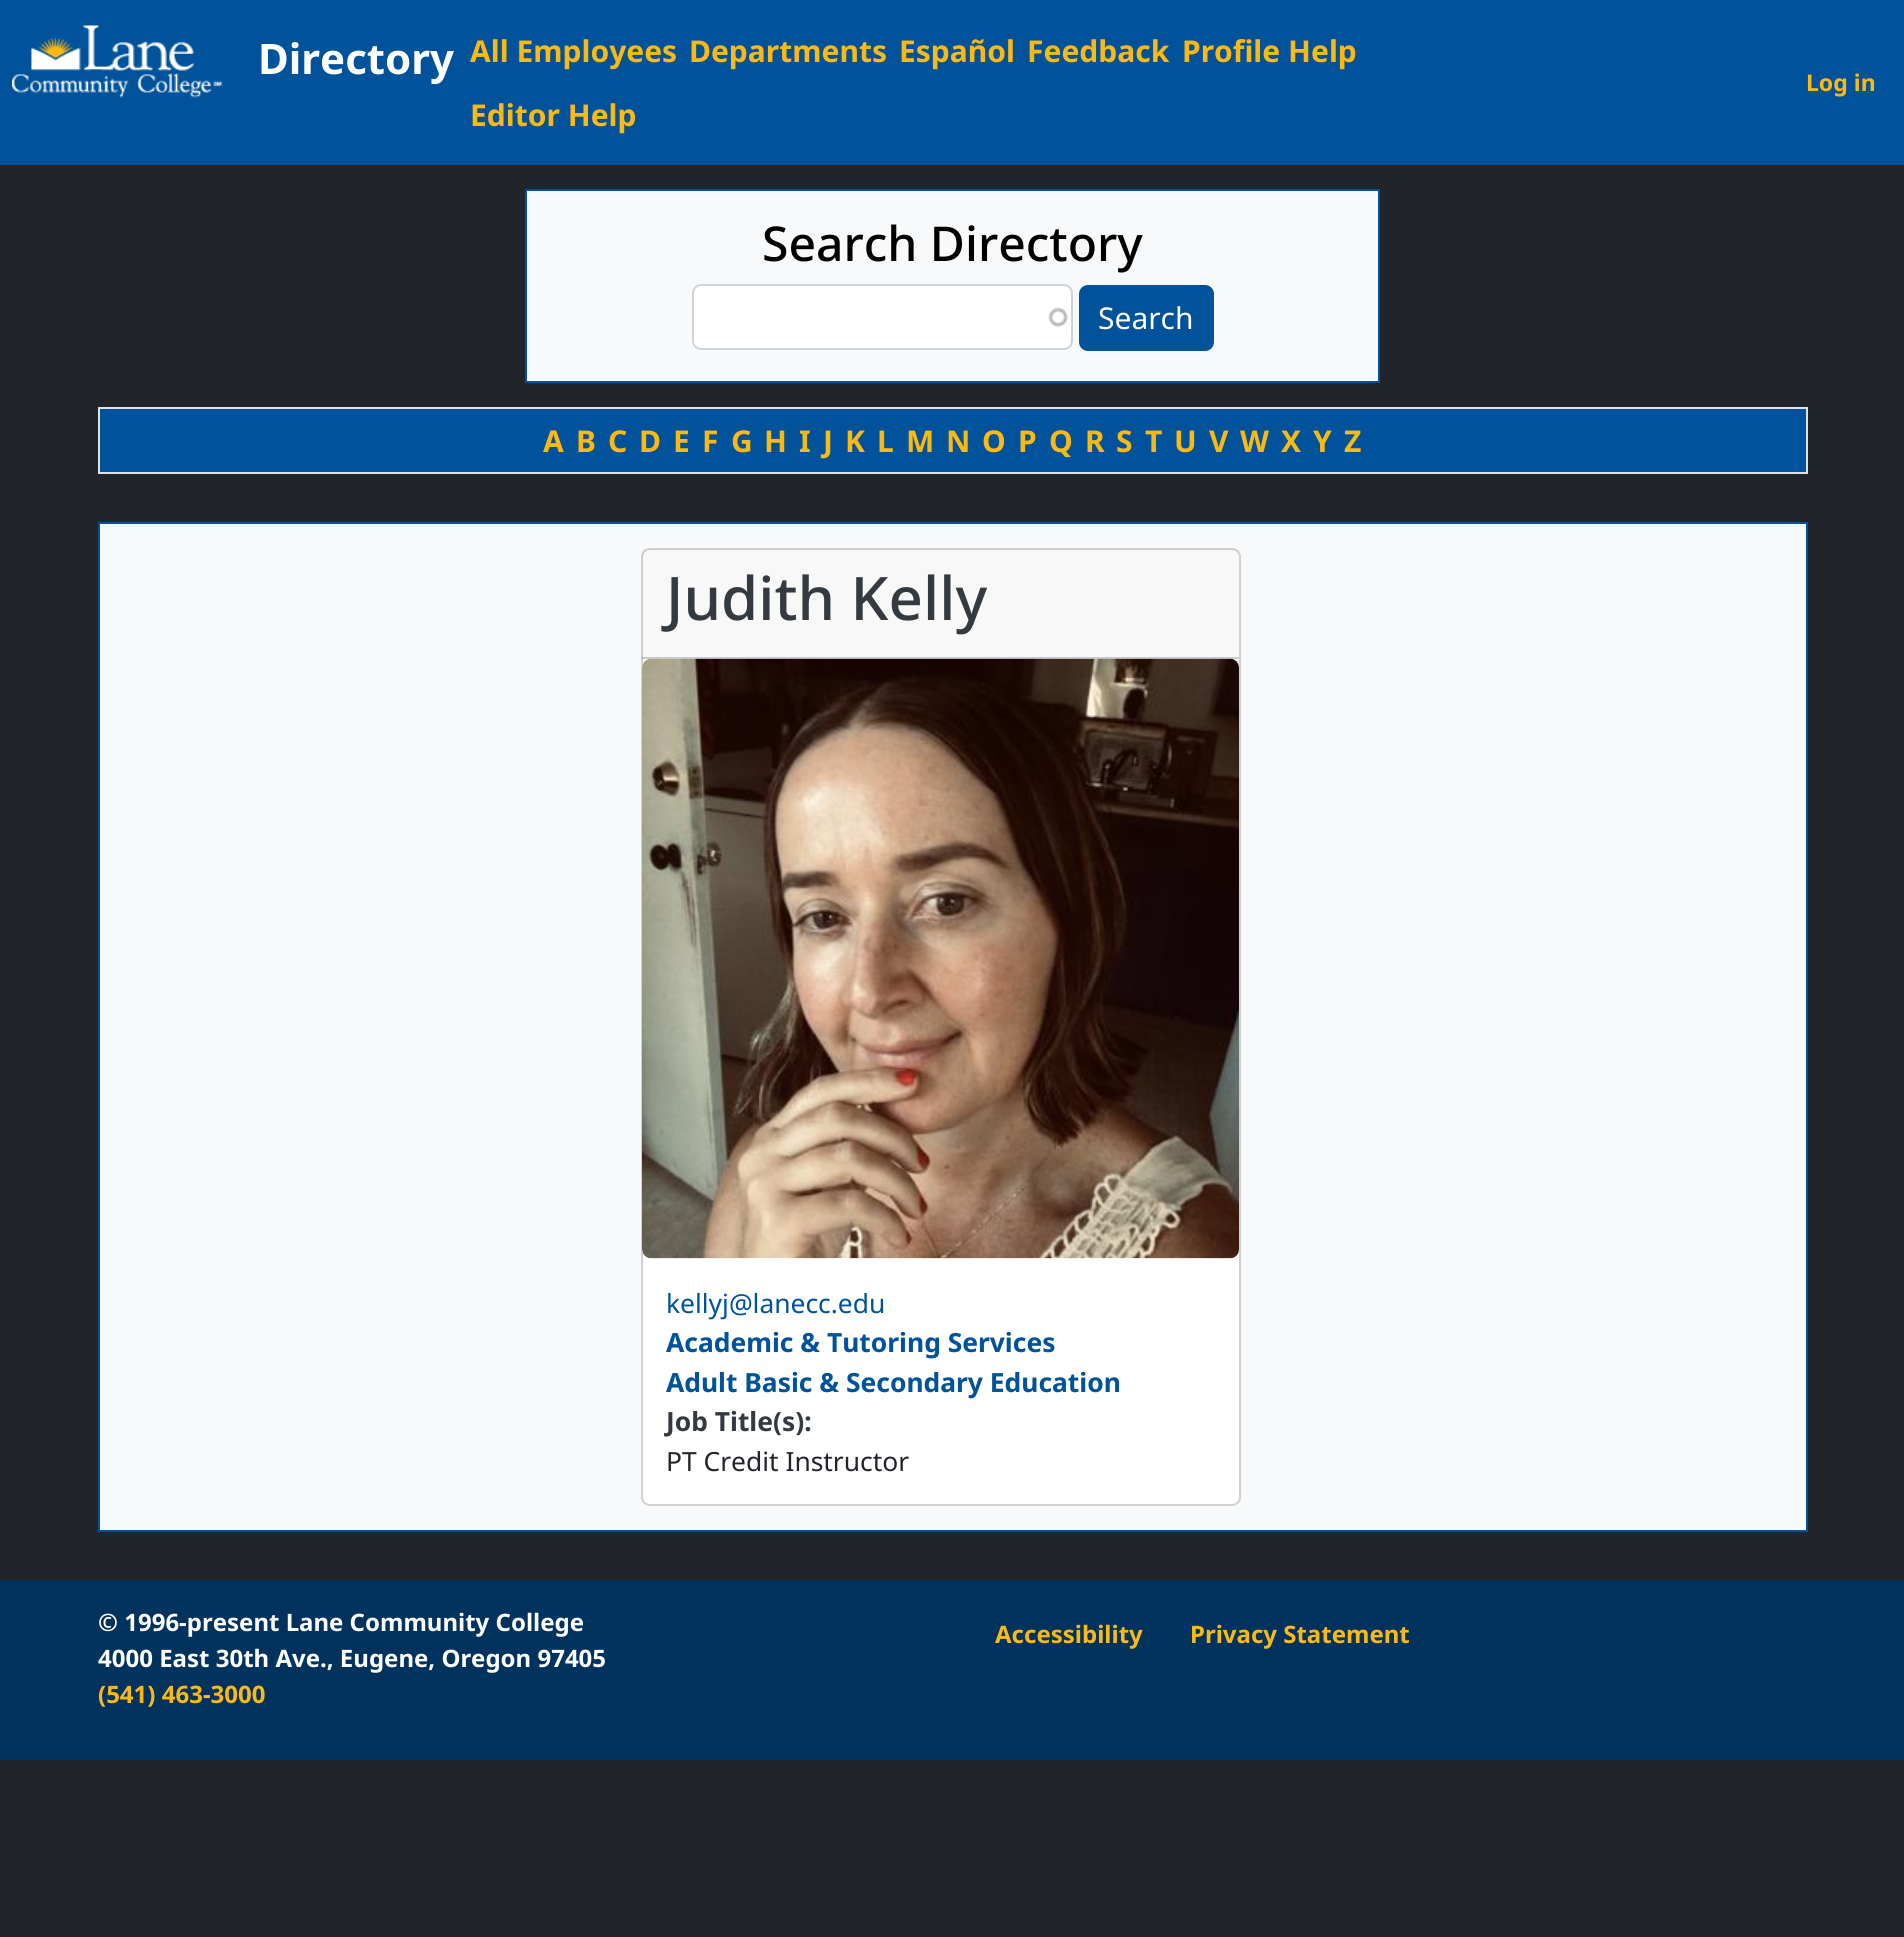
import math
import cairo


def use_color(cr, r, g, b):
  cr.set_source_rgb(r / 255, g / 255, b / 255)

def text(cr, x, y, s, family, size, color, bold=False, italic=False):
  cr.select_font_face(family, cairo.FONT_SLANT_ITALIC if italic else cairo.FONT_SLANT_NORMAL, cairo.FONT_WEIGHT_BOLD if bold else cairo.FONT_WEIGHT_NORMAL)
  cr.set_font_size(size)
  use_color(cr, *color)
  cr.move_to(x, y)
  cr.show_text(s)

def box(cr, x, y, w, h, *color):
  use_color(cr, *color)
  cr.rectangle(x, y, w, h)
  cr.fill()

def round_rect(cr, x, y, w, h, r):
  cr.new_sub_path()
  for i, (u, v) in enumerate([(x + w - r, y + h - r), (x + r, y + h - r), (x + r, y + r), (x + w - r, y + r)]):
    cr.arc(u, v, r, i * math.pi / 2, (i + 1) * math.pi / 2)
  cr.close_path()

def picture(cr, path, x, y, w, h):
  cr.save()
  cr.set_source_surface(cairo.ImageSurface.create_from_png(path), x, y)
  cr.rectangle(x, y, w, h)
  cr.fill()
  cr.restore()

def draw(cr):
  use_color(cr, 33, 37, 41)
  cr.paint()
  box(cr, 0, 0, 1904, 165, 0, 82, 155)
  picture(cr, "img_01.png", 12, 25, 211, 73)
  use_color(cr, 248, 249, 250)
  cr.rectangle(526, 190, 853, 192)
  cr.fill_preserve()
  use_color(cr, 0, 82, 155)
  cr.stroke()
  use_color(cr, 255, 255, 255)
  round_rect(cr, 693, 285, 378, 63, 8)
  cr.fill()
  picture(cr, "img_02.png", 1048, 307, 21, 20)
  round_rect(cr, 693, 285, 379, 64, 8)
  use_color(cr, 206, 212, 218)
  cr.stroke()
  use_color(cr, 0, 82, 155)
  round_rect(cr, 1080, 286, 133, 64, 8)
  cr.fill_preserve()
  cr.stroke()
  cr.rectangle(99, 408, 1708, 65)
  cr.fill_preserve()
  use_color(cr, 222, 226, 230)
  cr.stroke()
  use_color(cr, 248, 249, 250)
  cr.rectangle(99, 523, 1708, 1008)
  cr.fill_preserve()
  use_color(cr, 0, 82, 155)
  cr.stroke()
  use_color(cr, 255, 255, 255)
  round_rect(cr, 641, 548, 600, 958, 9)
  cr.fill()
  round_rect(cr, 642, 549, 598, 956, 8)
  cr.set_source_rgba(0, 0, 0, 0.18)
  cr.stroke()
  cr.set_source_rgba(0, 0, 0, 0.03)
  cr.rectangle(642, 549, 597, 110)
  cr.fill()
  cr.set_source_rgba(0, 0, 0, 0.18)
  cr.rectangle(642, 657, 597, 2)
  cr.fill()
  picture(cr, "img_03.png", 642, 658, 597, 601)
  box(cr, 0, 1580, 1904, 180, 0, 50, 94)
  text(cr, 258, 74, "Directory", "Noto Sans", 42, (255, 255, 255), bold=True)
  text(cr, 470, 62, "All Employees", "Noto Sans", 30, (253, 185, 19), bold=True)
  text(cr, 689, 62, "Departments", "Noto Sans", 30, (253, 185, 19), bold=True)
  text(cr, 899, 62, "Español", "Noto Sans", 30, (253, 185, 19), bold=True)
  text(cr, 1027, 62, "Feedback", "Noto Sans", 30, (253, 185, 19), bold=True)
  text(cr, 1182, 62, "Profile Help", "Noto Sans", 30, (253, 185, 19), bold=True)
  text(cr, 470, 126, "Editor Help", "Noto Sans", 30, (253, 185, 19), bold=True)
  text(cr, 1806, 91, "Log in", "Noto Sans", 23, (253, 185, 19), bold=True)
  text(cr, 762, 261, "Search Directory", "Noto Sans Medium", 48, (0, 0, 0))
  text(cr, 1098, 329, "Search", "Noto Sans", 30, (255, 255, 255))
  text(cr, 543, 452, "A", "Noto Sans", 30, (253, 185, 19), bold=True)
  text(cr, 576, 452, "B", "Noto Sans", 30, (253, 185, 19), bold=True)
  text(cr, 608, 452, "C", "Noto Sans", 30, (253, 185, 19), bold=True)
  text(cr, 639, 452, "D", "Noto Sans", 30, (253, 185, 19), bold=True)
  text(cr, 673, 452, "E", "Noto Sans", 30, (253, 185, 19), bold=True)
  text(cr, 702, 452, "F", "Noto Sans", 30, (253, 185, 19), bold=True)
  text(cr, 731, 452, "G", "Noto Sans", 30, (253, 185, 19), bold=True)
  text(cr, 764, 452, "H", "Noto Sans", 30, (253, 185, 19), bold=True)
  text(cr, 799, 452, "I", "Noto Sans", 30, (253, 185, 19), bold=True)
  text(cr, 823, 452, "J", "Noto Sans", 30, (253, 185, 19), bold=True)
  text(cr, 845, 452, "K", "Noto Sans", 30, (253, 185, 19), bold=True)
  text(cr, 877, 452, "L", "Noto Sans", 30, (253, 185, 19), bold=True)
  text(cr, 906, 452, "M", "Noto Sans", 30, (253, 185, 19), bold=True)
  text(cr, 946, 452, "N", "Noto Sans", 30, (253, 185, 19), bold=True)
  text(cr, 982, 452, "O", "Noto Sans", 30, (253, 185, 19), bold=True)
  text(cr, 1018, 452, "P", "Noto Sans", 30, (253, 185, 19), bold=True)
  text(cr, 1049, 452, "Q", "Noto Sans", 30, (253, 185, 19), bold=True)
  text(cr, 1085, 452, "R", "Noto Sans", 30, (253, 185, 19), bold=True)
  text(cr, 1116, 452, "S", "Noto Sans", 30, (253, 185, 19), bold=True)
  text(cr, 1145, 452, "T", "Noto Sans", 30, (253, 185, 19), bold=True)
  text(cr, 1174, 452, "U", "Noto Sans", 30, (253, 185, 19), bold=True)
  text(cr, 1209, 452, "V", "Noto Sans", 30, (253, 185, 19), bold=True)
  text(cr, 1240, 452, "W", "Noto Sans", 30, (253, 185, 19), bold=True)
  text(cr, 1281, 452, "X", "Noto Sans", 30, (253, 185, 19), bold=True)
  text(cr, 1313, 452, "Y", "Noto Sans", 30, (253, 185, 19), bold=True)
  text(cr, 1344, 452, "Z", "Noto Sans", 30, (253, 185, 19), bold=True)
  text(cr, 666, 620, "Judith Kelly", "Noto Sans Medium", 60, (52, 58, 64))
  text(cr, 666, 1313, "kellyj@lanecc.edu", "Noto Sans", 26.4, (0, 82, 155))
  text(cr, 666, 1352, "Academic & Tutoring Services", "Noto Sans", 26.4, (0, 82, 155), bold=True)
  text(cr, 666, 1392, "Adult Basic & Secondary Education", "Noto Sans", 26.4, (0, 82, 155), bold=True)
  text(cr, 666, 1431, "Job Title(s):", "Noto Sans", 26.4, (52, 58, 64), bold=True)
  text(cr, 666, 1471, "PT Credit Instructor", "Noto Sans", 26.4, (33, 37, 41))
  text(cr, 98, 1631, "© 1996-present Lane Community College", "Noto Sans", 24, (255, 255, 255), bold=True)
  text(cr, 98, 1667, "4000 East 30th Ave., Eugene, Oregon 97405", "Noto Sans", 24, (255, 255, 255), bold=True)
  text(cr, 98, 1703, "(541) 463-3000", "Noto Sans", 24, (253, 185, 19), bold=True)
  text(cr, 995, 1643, "Accessibility", "Noto Sans", 24, (253, 185, 19), bold=True)
  text(cr, 1190, 1643, "Privacy Statement", "Noto Sans", 24, (253, 185, 19), bold=True)


surface = cairo.ImageSurface(cairo.FORMAT_RGB24, 1904, 1937)
cr = cairo.Context(surface)
options = cairo.FontOptions()
options.set_hint_metrics(cairo.HINT_METRICS_OFF)
options.set_hint_style(cairo.HINT_STYLE_NONE)
cr.set_font_options(options)
cr.set_miter_limit(4)
draw(cr)
surface.write_to_png("out.png")
